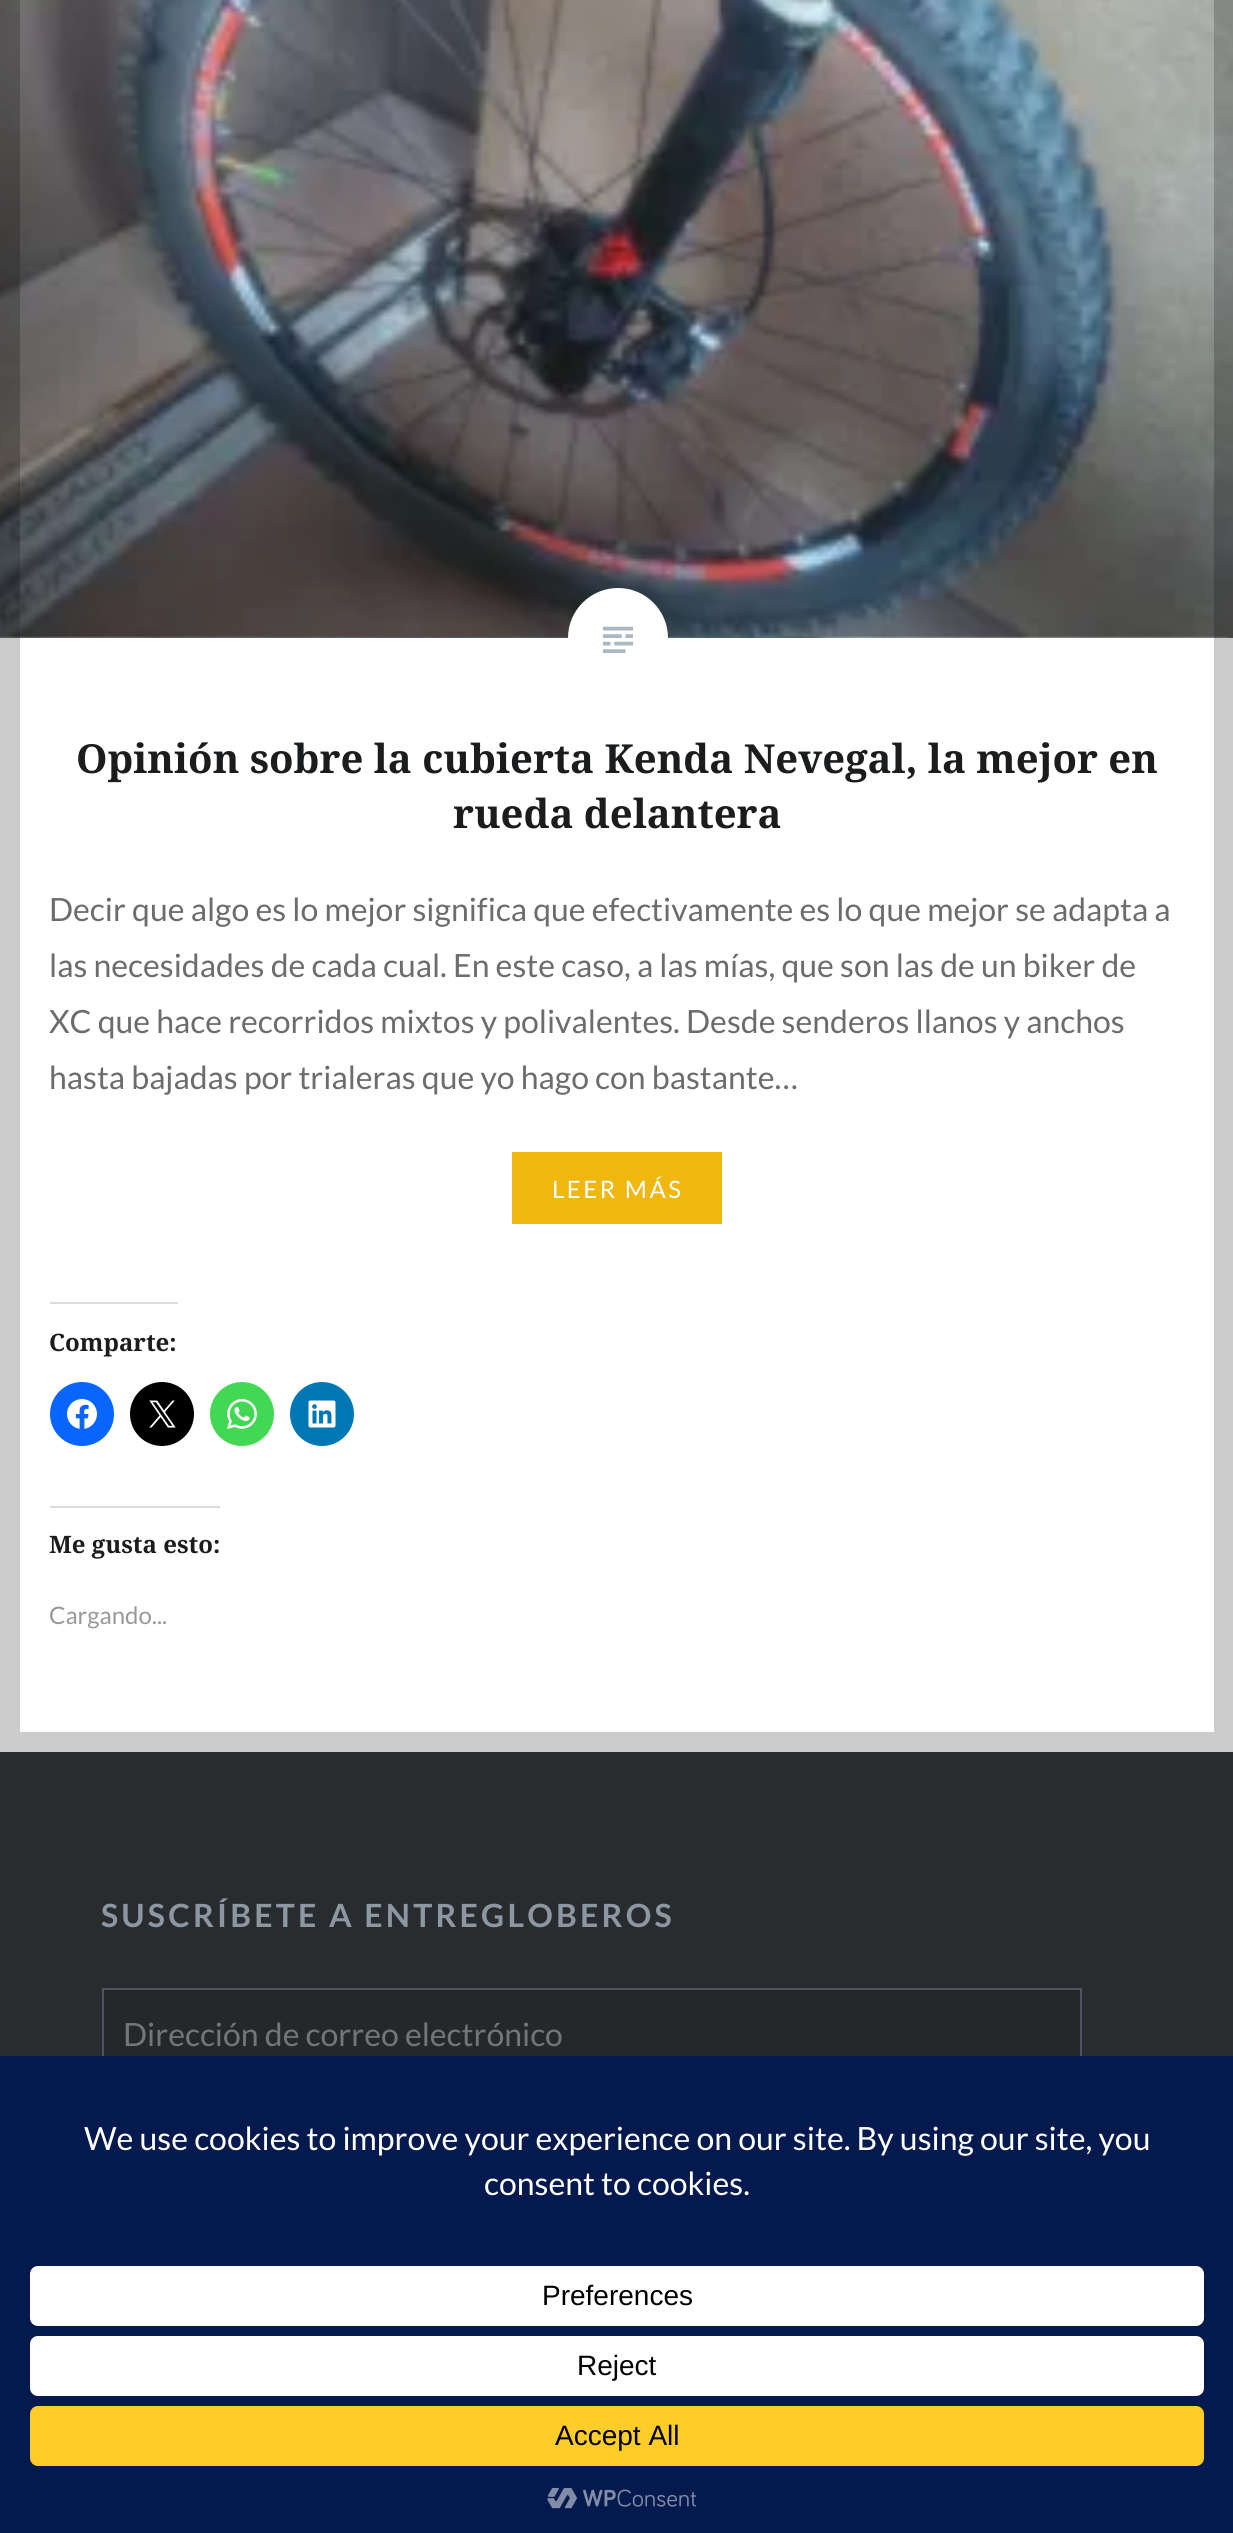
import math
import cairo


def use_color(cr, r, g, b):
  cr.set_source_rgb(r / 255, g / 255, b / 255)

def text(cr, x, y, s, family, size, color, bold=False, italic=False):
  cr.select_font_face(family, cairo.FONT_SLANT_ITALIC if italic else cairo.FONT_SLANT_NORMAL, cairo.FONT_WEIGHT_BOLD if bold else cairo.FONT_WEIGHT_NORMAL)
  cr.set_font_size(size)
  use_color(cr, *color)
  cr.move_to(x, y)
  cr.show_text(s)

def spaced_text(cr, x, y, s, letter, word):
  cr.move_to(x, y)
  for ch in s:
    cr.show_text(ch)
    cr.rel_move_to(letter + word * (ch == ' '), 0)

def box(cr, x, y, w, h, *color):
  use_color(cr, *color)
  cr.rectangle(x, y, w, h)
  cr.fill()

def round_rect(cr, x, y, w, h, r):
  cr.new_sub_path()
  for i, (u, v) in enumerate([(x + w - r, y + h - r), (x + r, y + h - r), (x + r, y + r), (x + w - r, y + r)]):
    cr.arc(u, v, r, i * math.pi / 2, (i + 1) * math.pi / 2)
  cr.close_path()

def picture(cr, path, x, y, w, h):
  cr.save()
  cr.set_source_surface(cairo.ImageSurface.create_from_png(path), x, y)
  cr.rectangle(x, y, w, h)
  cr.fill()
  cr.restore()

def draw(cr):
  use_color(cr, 255, 255, 255)
  cr.paint()
  picture(cr, "img_01.png", 0, 0, 1233, 638)
  use_color(cr, 255, 255, 255)
  cr.arc(618, 638, 50, 0, 2 * math.pi)
  cr.fill()
  box(cr, 50, 1302, 128, 2, 220, 220, 222)
  use_color(cr, 8, 102, 255)
  cr.arc(82, 1414, 32, 0, 2 * math.pi)
  cr.fill()
  picture(cr, "img_03.png", 67, 1399, 30, 30)
  use_color(cr, 0, 0, 0)
  cr.arc(162, 1414, 32, 0, 2 * math.pi)
  cr.fill()
  picture(cr, "img_04.png", 149, 1400, 27, 28)
  use_color(cr, 67, 216, 84)
  cr.arc(242, 1414, 32, 0, 2 * math.pi)
  cr.fill()
  picture(cr, "img_05.png", 227, 1399, 30, 30)
  use_color(cr, 0, 119, 181)
  cr.arc(322, 1414, 32, 0, 2 * math.pi)
  cr.fill()
  picture(cr, "img_06.png", 308, 1400, 28, 28)
  box(cr, 50, 1506, 170, 2, 220, 220, 222)
  cr.rectangle(10, -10, 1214, 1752)
  cr.set_source_rgba(0, 0, 0, 0.2)
  cr.set_line_width(20)
  cr.stroke()
  picture(cr, "img_02.png", 603, 626, 30, 27)
  box(cr, 512, 1152, 210, 72, 240, 184, 14)
  box(cr, 0, 1752, 1233, 304, 41, 44, 47)
  box(cr, 104, 1990, 976, 66, 37, 40, 42)
  cr.rectangle(103, 1989, 978, 90)
  use_color(cr, 77, 84, 91)
  cr.set_line_width(2)
  cr.stroke()
  box(cr, 0, 2056, 1233, 477, 4, 25, 78)
  use_color(cr, 255, 255, 255)
  round_rect(cr, 30, 2266, 1174, 60, 8)
  cr.fill()
  round_rect(cr, 30, 2336, 1174, 60, 8)
  cr.fill()
  use_color(cr, 255, 205, 42)
  round_rect(cr, 30, 2406, 1174, 60, 8)
  cr.fill()
  picture(cr, "img_07.png", 547, 2487, 149, 22)
  text(cr, 76, 773, "Opinión sobre la cubierta Kenda Nevegal, la mejor en", "Noto Serif", 40, (26, 28, 30), bold=True)
  text(cr, 453, 828, "rueda delantera", "Noto Serif", 40, (26, 28, 30), bold=True)
  text(cr, 49, 921, "Decir que algo es lo mejor significa que efectivamente es lo que mejor se adapta a", "Lato", 32, (106, 108, 110))
  text(cr, 49, 977, "las necesidades de cada cual. En este caso, a las mías, que son las de un biker de", "Lato", 32, (106, 108, 110))
  text(cr, 49, 1033, "XC que hace recorridos mixtos y polivalentes. Desde senderos llanos y anchos", "Lato", 32, (106, 108, 110))
  text(cr, 49, 1089, "hasta bajadas por trialeras que yo hago con bastante…", "Lato", 32, (106, 108, 110))
  cr.set_font_size(24)
  use_color(cr, 255, 255, 255)
  spaced_text(cr, 552, 1198, "LEER MÁS", 2.5, 0)
  text(cr, 49, 1351, "Comparte:", "Noto Serif", 24, (26, 28, 30), bold=True)
  text(cr, 49, 1553, "Me gusta esto:", "Noto Serif", 24, (26, 28, 30), bold=True)
  text(cr, 49, 1624, "Cargando...", "Lato", 24, (153, 153, 153))
  cr.select_font_face("Lato", cairo.FONT_SLANT_NORMAL, cairo.FONT_WEIGHT_BOLD)
  cr.set_font_size(32)
  use_color(cr, 140, 151, 162)
  spaced_text(cr, 101, 1927, "SUSCRÍBETE A ENTREGLOBEROS", 3.2, 0)
  text(cr, 123, 2046, "Dirección de correo electrónico", "Lato", 32, (117, 117, 117))
  text(cr, 84, 2150, "We use cookies to improve your experience on our site. By using our site, you", "Lato", 32, (255, 255, 255))
  text(cr, 484, 2195, "consent to cookies.", "Lato", 32, (255, 255, 255))
  text(cr, 542, 2305, "Preferences", "Liberation Sans", 28, (0, 0, 0))
  text(cr, 577, 2375, "Reject", "Liberation Sans", 28, (0, 0, 0))
  text(cr, 555, 2445, "Accept All", "Liberation Sans", 28, (0, 0, 0))


surface = cairo.ImageSurface(cairo.FORMAT_RGB24, 1233, 2533)
cr = cairo.Context(surface)
options = cairo.FontOptions()
options.set_hint_metrics(cairo.HINT_METRICS_OFF)
options.set_hint_style(cairo.HINT_STYLE_NONE)
cr.set_font_options(options)
cr.set_miter_limit(4)
draw(cr)
surface.write_to_png("out.png")
